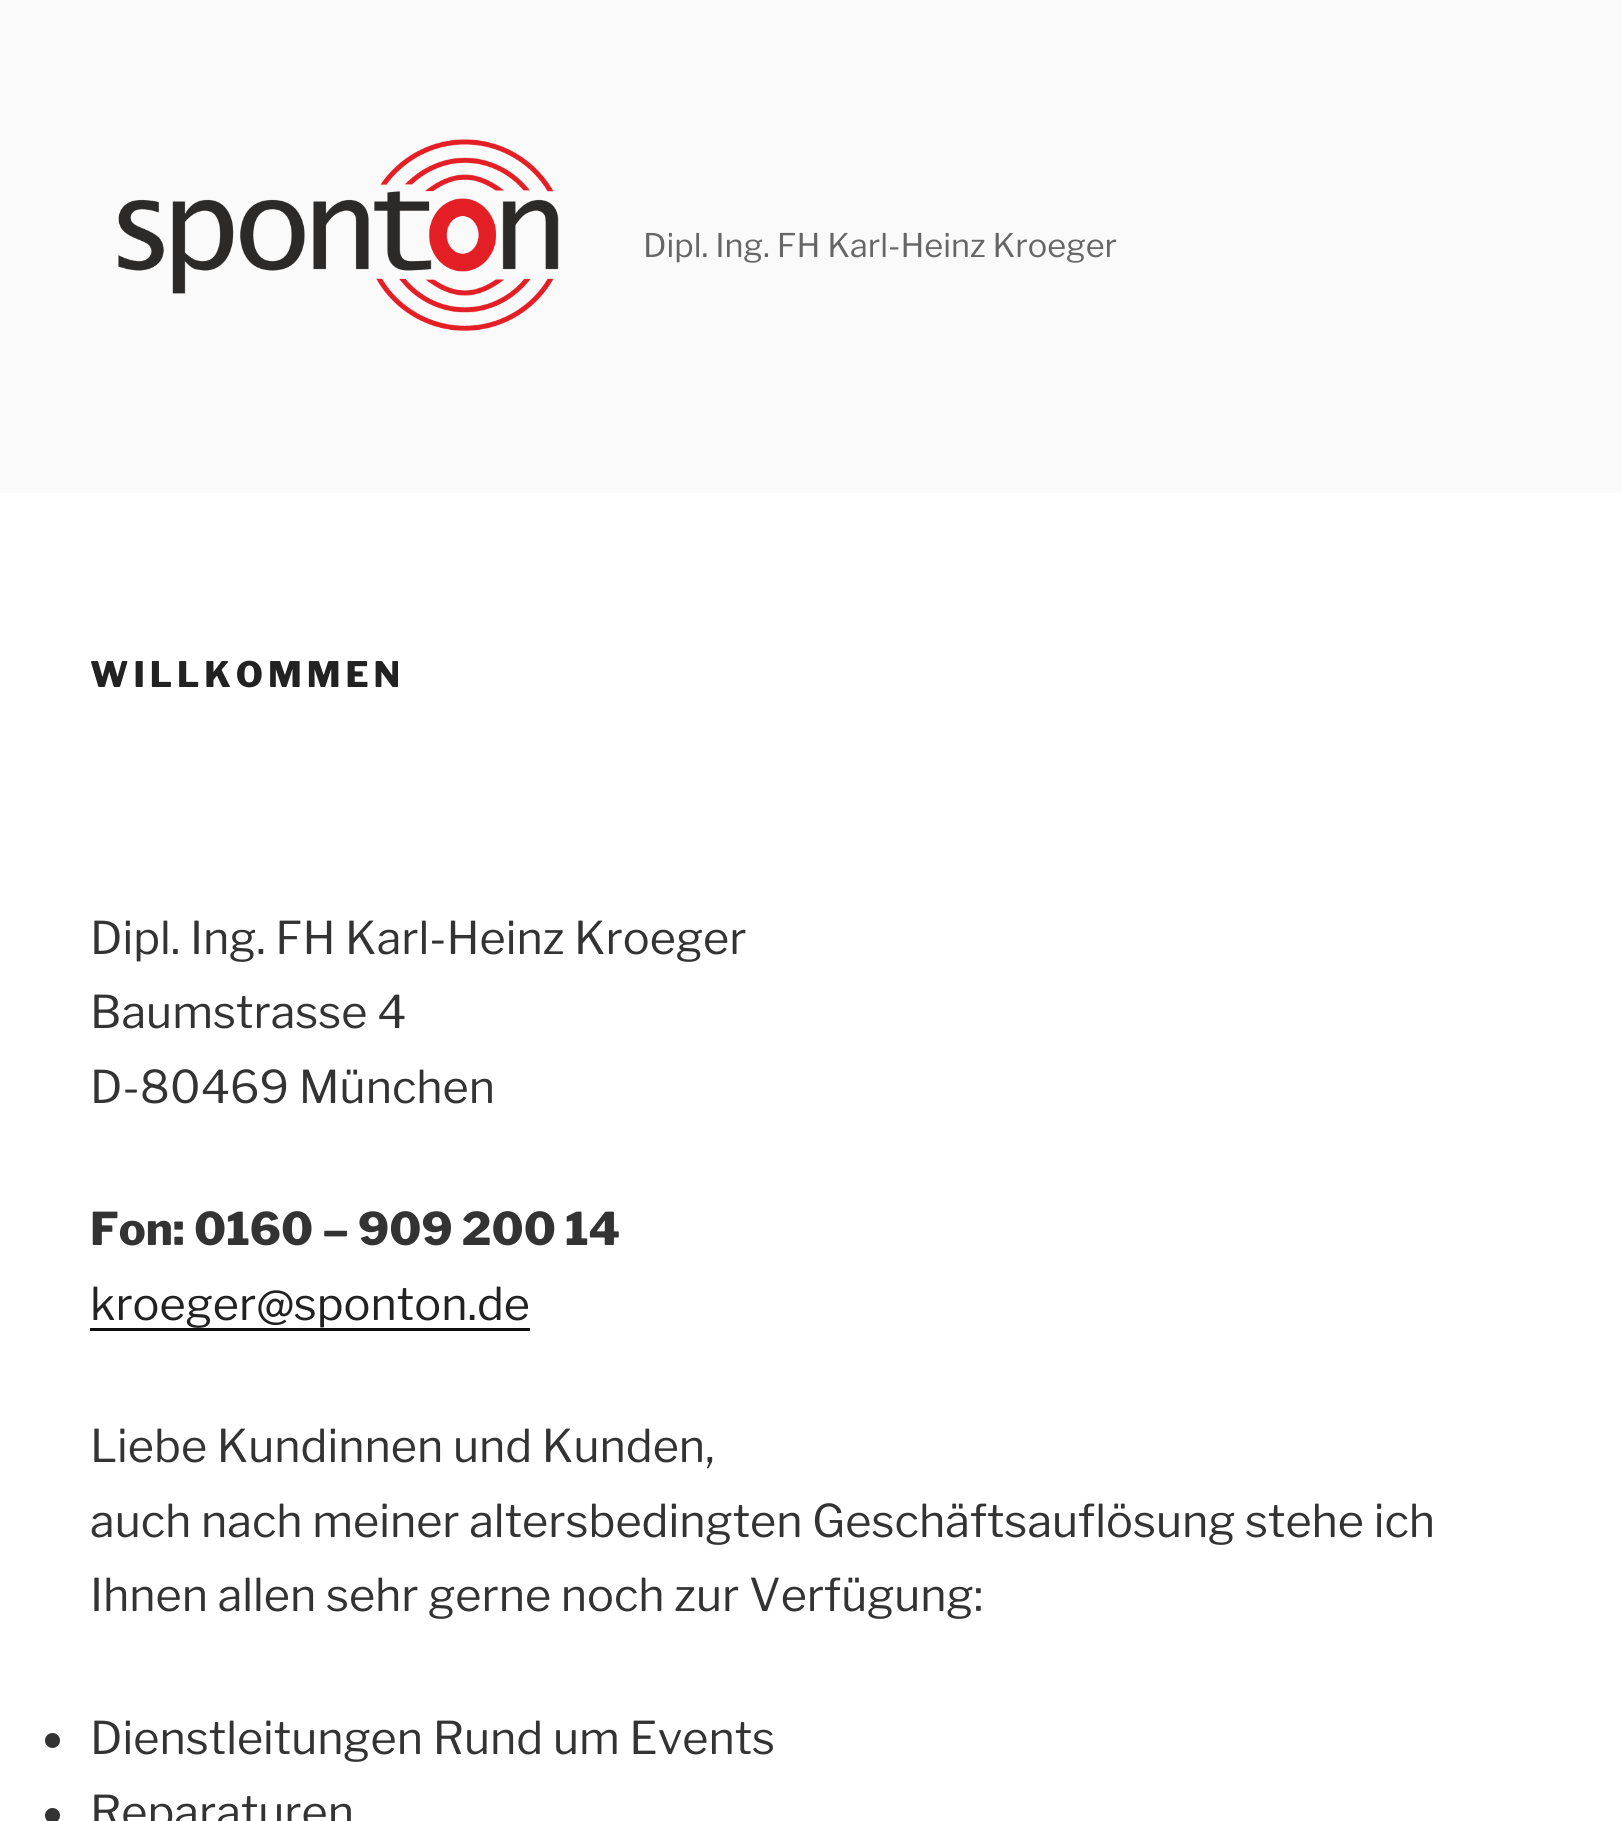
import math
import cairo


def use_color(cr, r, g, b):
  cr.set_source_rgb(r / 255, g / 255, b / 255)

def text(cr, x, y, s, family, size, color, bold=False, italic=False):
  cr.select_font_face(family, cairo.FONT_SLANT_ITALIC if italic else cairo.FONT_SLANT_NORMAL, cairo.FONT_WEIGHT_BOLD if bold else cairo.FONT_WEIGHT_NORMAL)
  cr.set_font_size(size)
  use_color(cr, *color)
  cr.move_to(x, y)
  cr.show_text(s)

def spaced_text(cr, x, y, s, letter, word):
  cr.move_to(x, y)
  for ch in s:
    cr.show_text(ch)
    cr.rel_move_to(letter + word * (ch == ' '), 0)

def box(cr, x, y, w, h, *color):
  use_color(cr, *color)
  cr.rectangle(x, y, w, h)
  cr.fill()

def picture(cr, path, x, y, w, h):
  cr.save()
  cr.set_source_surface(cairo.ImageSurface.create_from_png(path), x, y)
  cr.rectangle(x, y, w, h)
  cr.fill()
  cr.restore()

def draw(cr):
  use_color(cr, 255, 255, 255)
  cr.paint()
  box(cr, 0, 0, 1622, 493, 250, 250, 250)
  picture(cr, "img_01.png", 118, 139, 441, 192)
  box(cr, 90, 1328, 440, 3, 15, 15, 15)
  use_color(cr, 51, 51, 51)
  cr.arc(52.5, 1740.5, 7.5, 0, 2 * math.pi)
  cr.fill()
  cr.arc(52.5, 1815.5, 7.5, 0, 2 * math.pi)
  cr.fill()
  text(cr, 643, 257, "Dipl. Ing. FH Karl-Heinz Kroeger", "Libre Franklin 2 Thin", 32.5, (102, 102, 102))
  cr.select_font_face("Libre Franklin Thin")
  cr.set_font_size(35)
  use_color(cr, 34, 34, 34)
  spaced_text(cr, 90, 687, "WILLKOMMEN", 5, 0)
  text(cr, 90, 954, "Dipl. Ing. FH Karl-Heinz Kroeger", "Libre Franklin 2 Thin", 45, (51, 51, 51))
  text(cr, 90, 1028, "Baumstrasse 4", "Libre Franklin 2 Thin", 45, (51, 51, 51))
  text(cr, 90, 1103, "D-80469 München", "Libre Franklin 2 Thin", 45, (51, 51, 51))
  text(cr, 90, 1245, "Fon: 0160 – 909 200 14", "Libre Franklin Thin", 45, (51, 51, 51))
  text(cr, 90, 1320, "kroeger@sponton.de", "Libre Franklin 2 Thin", 45, (34, 34, 34))
  text(cr, 90, 1462, "Liebe Kundinnen und Kunden,", "Libre Franklin 2 Thin", 45, (51, 51, 51))
  text(cr, 90, 1537, "auch nach meiner altersbedingten Geschäftsauflösung stehe ich", "Libre Franklin 2 Thin", 45, (51, 51, 51))
  text(cr, 90, 1611, "Ihnen allen sehr gerne noch zur Verfügung:", "Libre Franklin 2 Thin", 45, (51, 51, 51))
  text(cr, 90, 1754, "Dienstleitungen Rund um Events", "Libre Franklin 2 Thin", 45, (51, 51, 51))
  text(cr, 90, 1828, "Reparaturen", "Libre Franklin 2 Thin", 45, (51, 51, 51))


surface = cairo.ImageSurface(cairo.FORMAT_RGB24, 1622, 1821)
cr = cairo.Context(surface)
options = cairo.FontOptions()
options.set_hint_metrics(cairo.HINT_METRICS_OFF)
options.set_hint_style(cairo.HINT_STYLE_NONE)
cr.set_font_options(options)
cr.set_miter_limit(4)
draw(cr)
surface.write_to_png("out.png")
